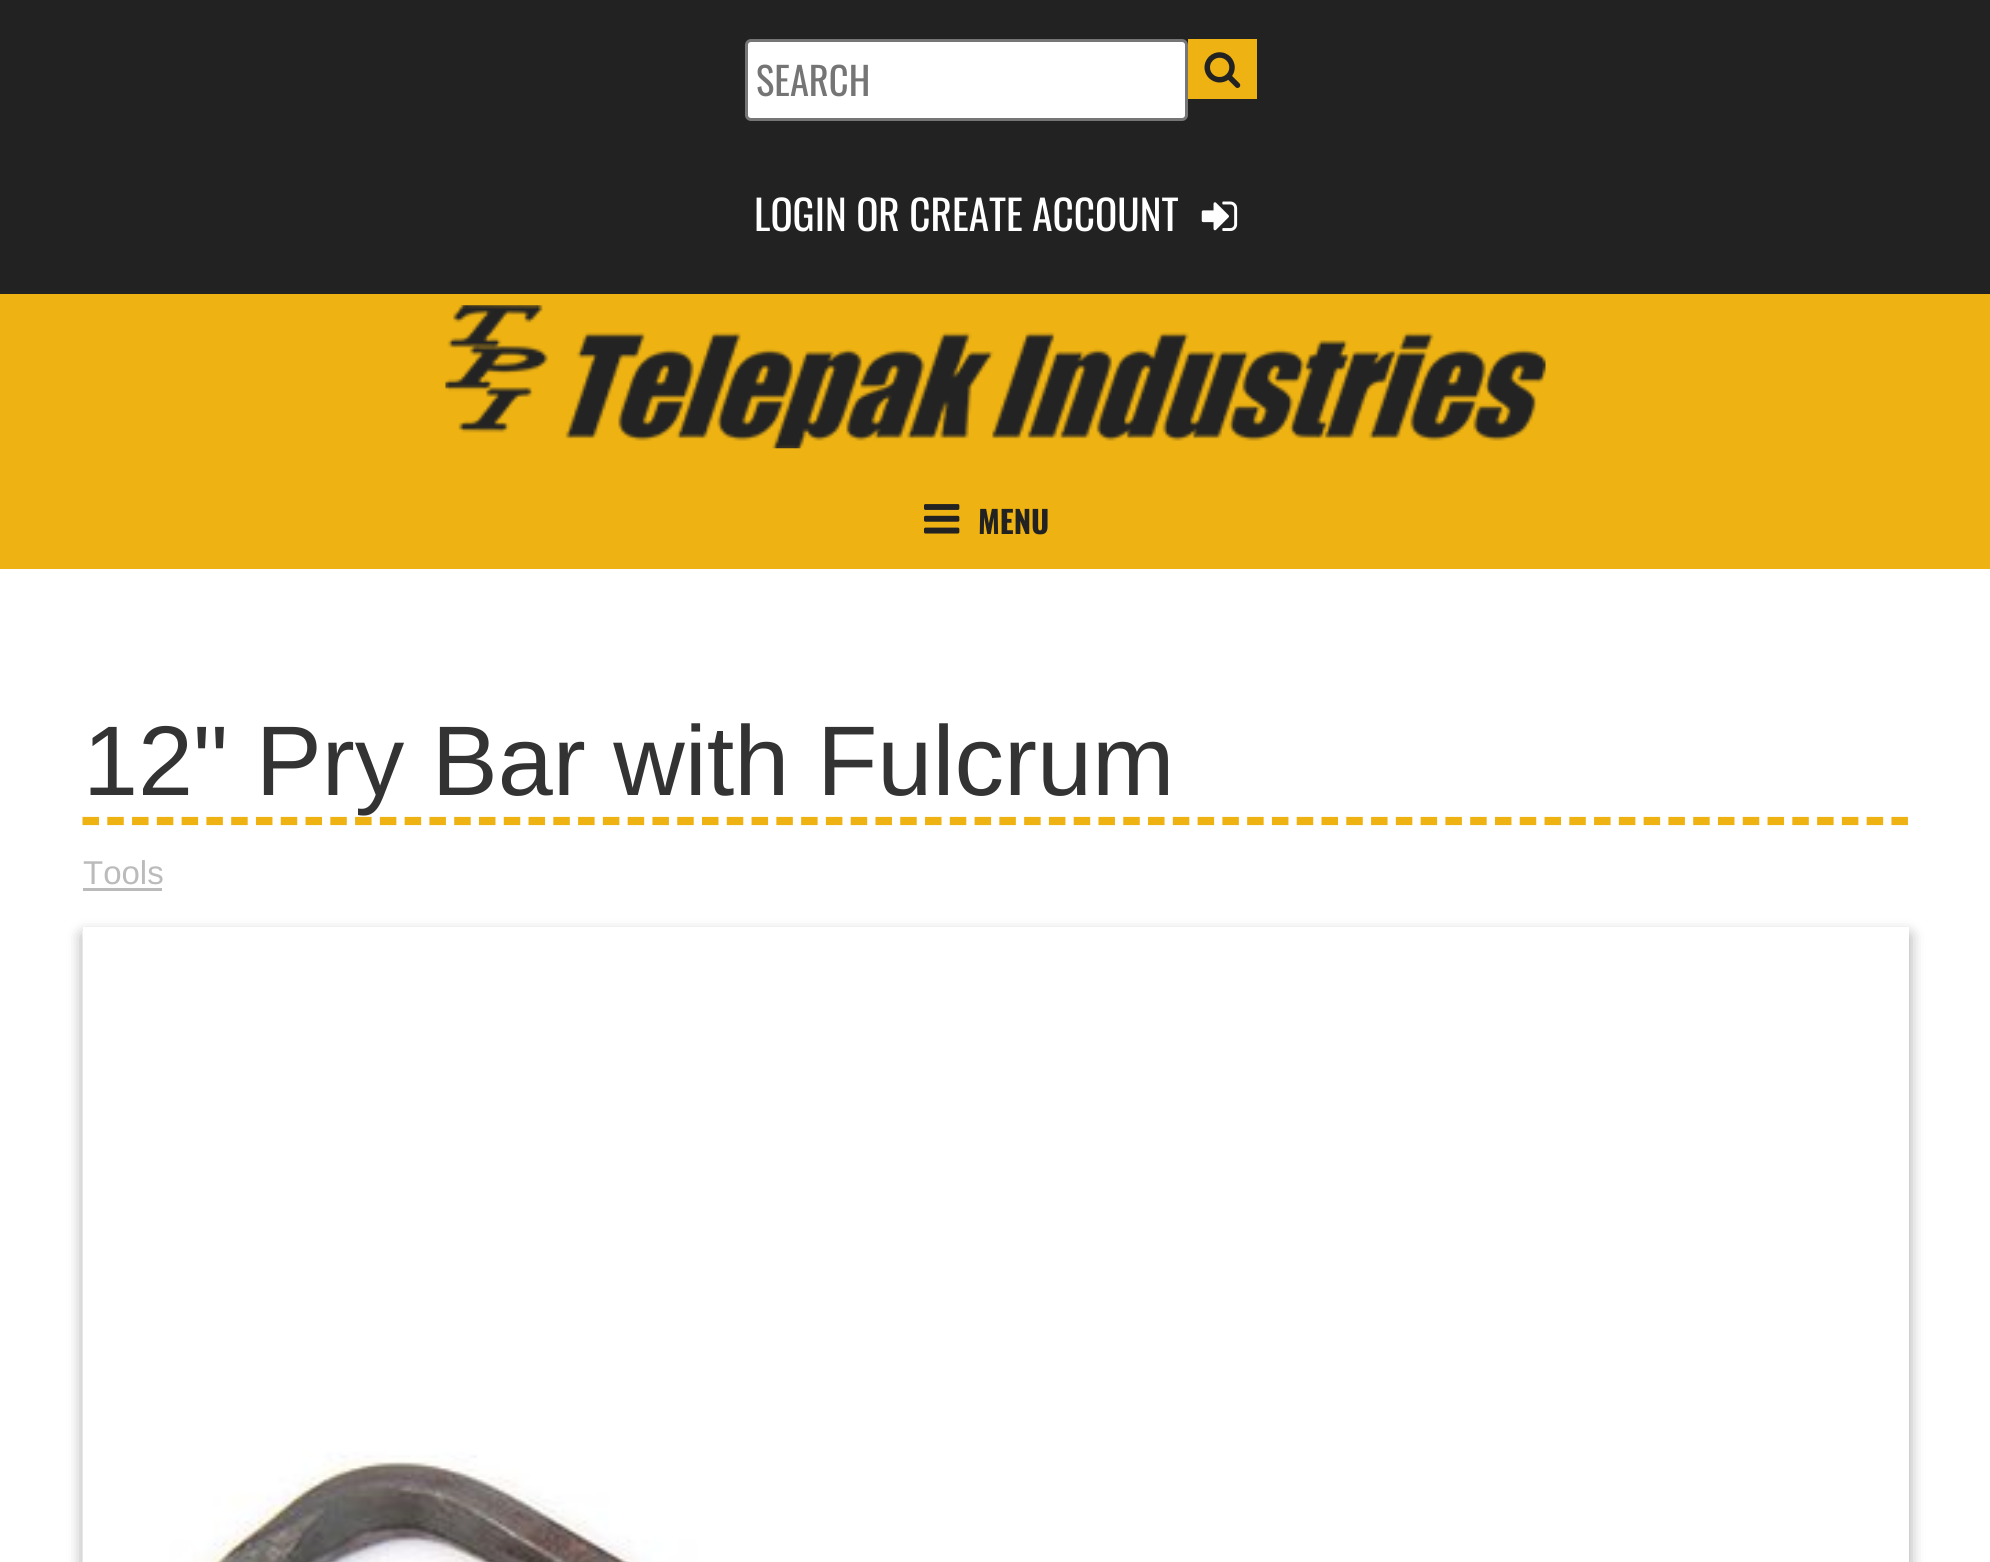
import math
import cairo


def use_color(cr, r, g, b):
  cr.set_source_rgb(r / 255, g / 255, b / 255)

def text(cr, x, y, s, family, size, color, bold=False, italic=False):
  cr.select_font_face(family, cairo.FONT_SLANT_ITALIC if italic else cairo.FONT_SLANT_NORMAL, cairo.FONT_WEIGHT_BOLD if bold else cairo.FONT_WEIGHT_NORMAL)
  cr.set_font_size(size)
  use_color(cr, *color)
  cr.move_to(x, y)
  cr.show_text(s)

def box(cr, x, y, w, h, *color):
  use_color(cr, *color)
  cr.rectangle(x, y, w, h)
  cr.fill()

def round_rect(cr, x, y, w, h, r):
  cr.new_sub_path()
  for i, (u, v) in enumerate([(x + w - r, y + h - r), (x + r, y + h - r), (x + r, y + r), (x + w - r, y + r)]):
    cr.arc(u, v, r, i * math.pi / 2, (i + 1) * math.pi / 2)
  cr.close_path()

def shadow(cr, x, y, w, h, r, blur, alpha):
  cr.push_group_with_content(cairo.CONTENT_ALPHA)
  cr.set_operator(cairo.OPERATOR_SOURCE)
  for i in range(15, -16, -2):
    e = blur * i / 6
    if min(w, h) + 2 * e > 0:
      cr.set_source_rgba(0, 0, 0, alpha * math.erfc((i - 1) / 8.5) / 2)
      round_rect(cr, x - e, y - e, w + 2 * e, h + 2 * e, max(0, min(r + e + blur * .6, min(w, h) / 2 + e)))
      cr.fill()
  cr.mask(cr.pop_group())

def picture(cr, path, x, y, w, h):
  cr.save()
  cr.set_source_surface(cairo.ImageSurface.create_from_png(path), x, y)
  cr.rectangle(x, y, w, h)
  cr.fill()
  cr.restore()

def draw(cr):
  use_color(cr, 255, 255, 255)
  cr.paint()
  box(cr, 0, 0, 1990, 294, 34, 34, 34)
  use_color(cr, 255, 255, 255)
  round_rect(cr, 746.5, 40.5, 440, 79, 4.5)
  cr.fill_preserve()
  use_color(cr, 118, 118, 118)
  cr.set_line_width(3)
  cr.stroke()
  box(cr, 1188, 39, 69, 60, 238, 178, 18)
  picture(cr, "img_01.png", 1204, 52, 37, 36)
  picture(cr, "img_02.png", 1201, 201, 37, 30)
  box(cr, 0, 294, 1990, 275, 238, 178, 18)
  picture(cr, "img_03.png", 445, 305, 1101, 144)
  picture(cr, "img_04.png", 924, 504, 36, 30)
  cr.new_path()
  cr.move_to(82.5, 821)
  cr.line_to(1908.5, 821)
  cr.set_line_width(8.2)
  cr.set_dash([16.5, 8.28])
  cr.stroke()
  box(cr, 83, 888, 79, 3, 187, 187, 187)
  cr.save()
  cr.set_fill_rule(cairo.FILL_RULE_EVEN_ODD)
  cr.new_path()
  cr.move_to(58, 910)
  cr.line_to(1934, 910)
  cr.line_to(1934, 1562)
  cr.line_to(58, 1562)
  cr.close_path()
  cr.move_to(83, 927)
  cr.line_to(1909, 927)
  cr.line_to(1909, 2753)
  cr.line_to(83, 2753)
  cr.close_path()
  cr.clip()
  use_color(cr, 0, 0, 0)
  shadow(cr, 83, 935, 1826, 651, 0, 8, 0.23)
  shadow(cr, 83, 935, 1826, 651, 0, 8, 0.16)
  cr.restore()
  picture(cr, "img_05.png", 82, 931, 1827, 631)
  text(cr, 756, 96, "SEARCH", "Oswald", 38.5, (117, 117, 117))
  text(cr, 754, 231, "LOGIN OR CREATE ACCOUNT", "Oswald", 41.25, (255, 255, 255))
  text(cr, 978, 534, "MENU", "Oswald", 31, (34, 34, 34), bold=True)
  text(cr, 83, 795, "12\" Pry Bar with Fulcrum", "Liberation Sans", 99, (51, 51, 51))
  text(cr, 83, 884, "Tools", "Liberation Sans", 33, (187, 187, 187))


surface = cairo.ImageSurface(cairo.FORMAT_RGB24, 1990, 1562)
cr = cairo.Context(surface)
options = cairo.FontOptions()
options.set_hint_metrics(cairo.HINT_METRICS_OFF)
options.set_hint_style(cairo.HINT_STYLE_NONE)
cr.set_font_options(options)
cr.set_miter_limit(4)
draw(cr)
surface.write_to_png("out.png")
